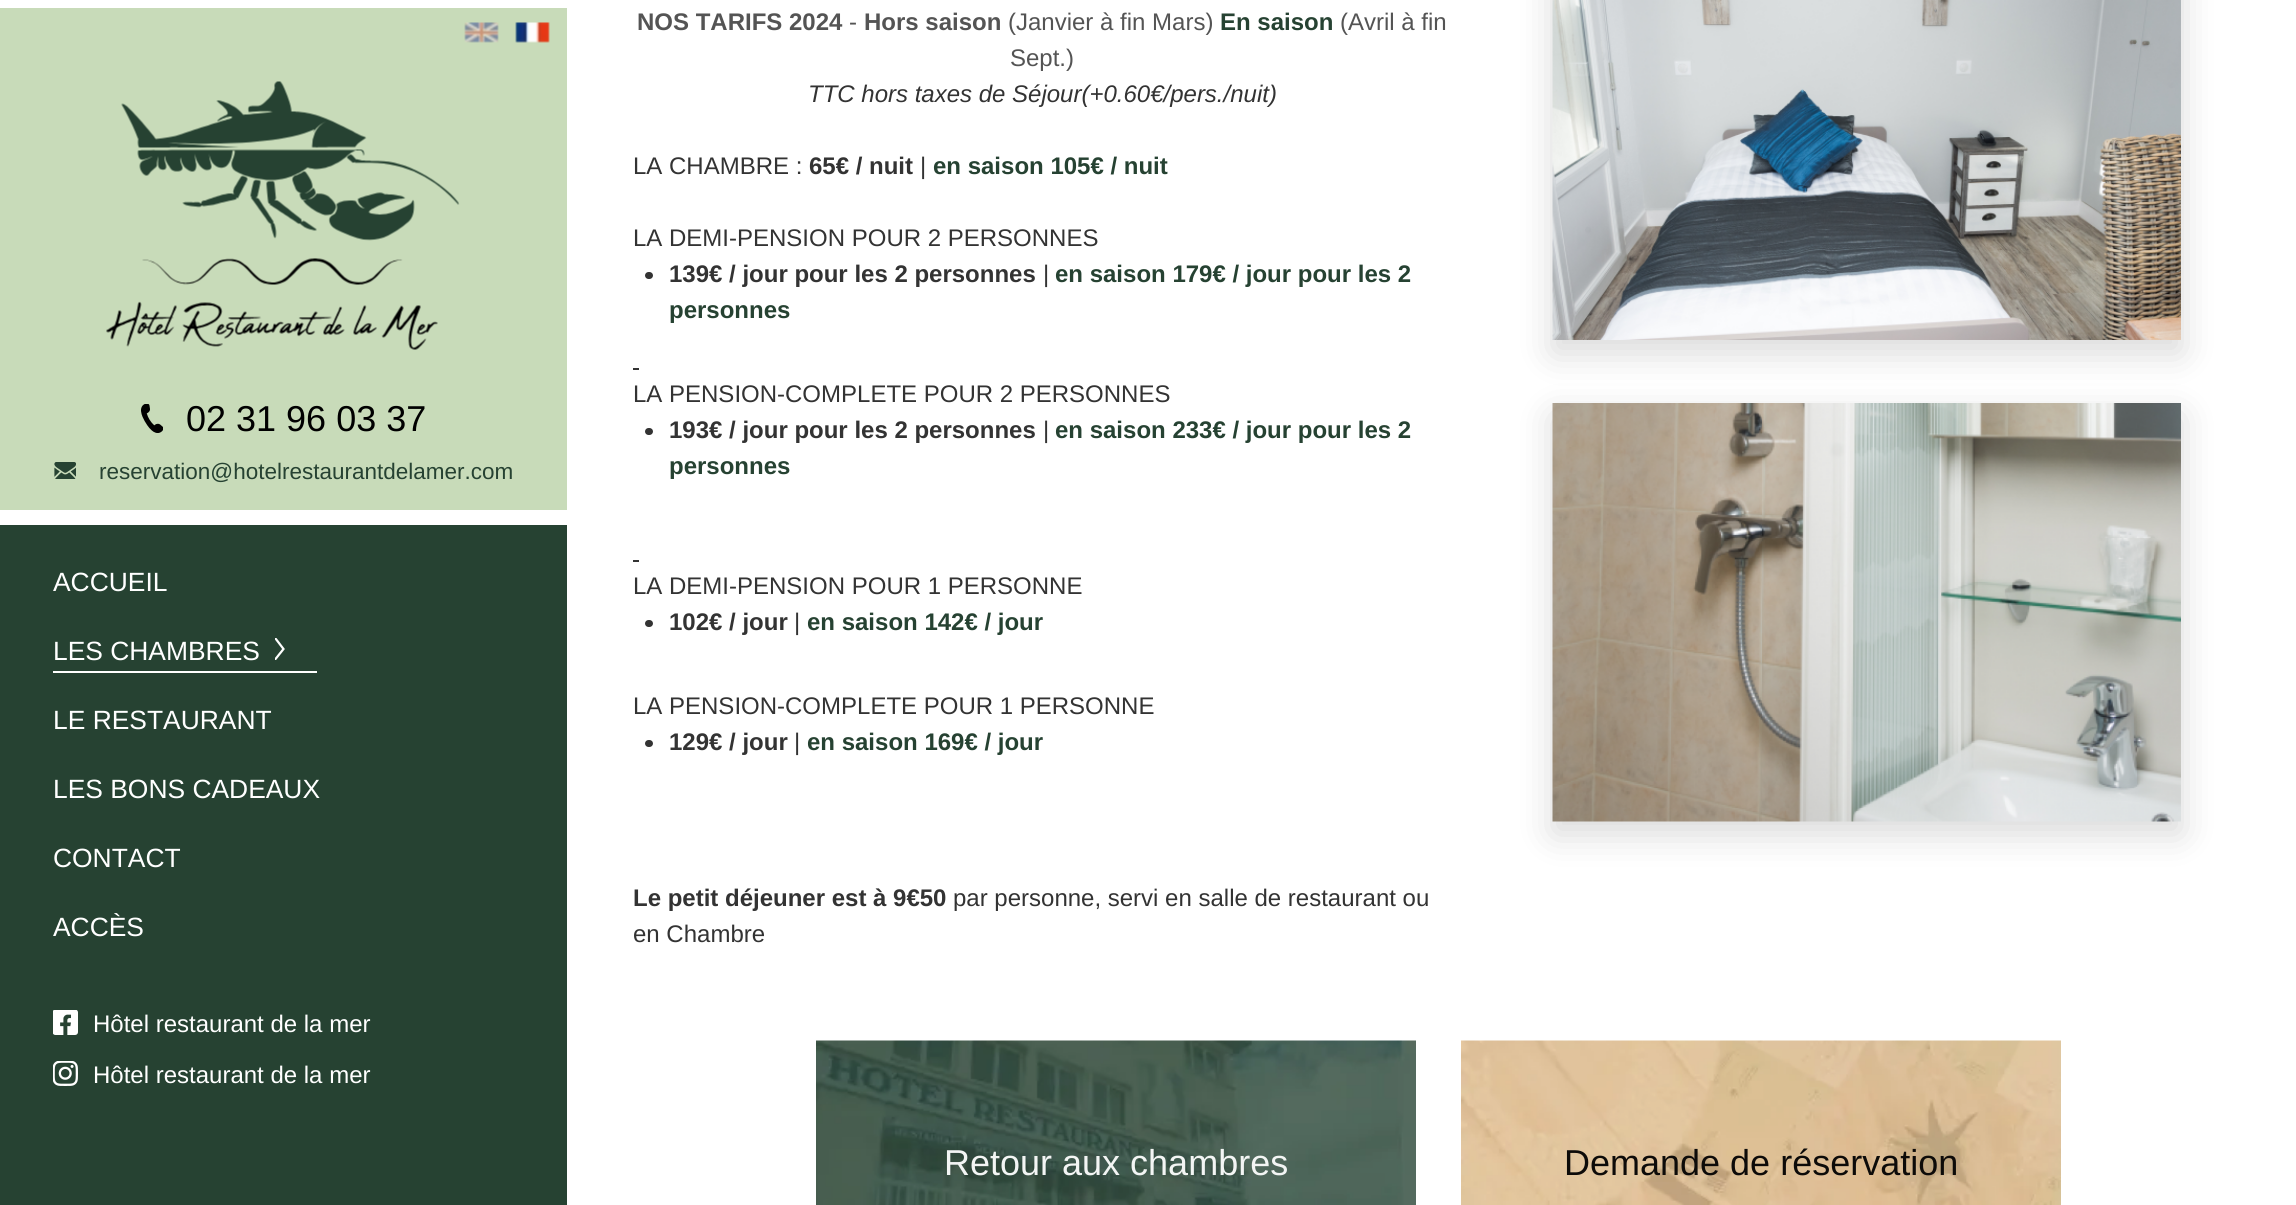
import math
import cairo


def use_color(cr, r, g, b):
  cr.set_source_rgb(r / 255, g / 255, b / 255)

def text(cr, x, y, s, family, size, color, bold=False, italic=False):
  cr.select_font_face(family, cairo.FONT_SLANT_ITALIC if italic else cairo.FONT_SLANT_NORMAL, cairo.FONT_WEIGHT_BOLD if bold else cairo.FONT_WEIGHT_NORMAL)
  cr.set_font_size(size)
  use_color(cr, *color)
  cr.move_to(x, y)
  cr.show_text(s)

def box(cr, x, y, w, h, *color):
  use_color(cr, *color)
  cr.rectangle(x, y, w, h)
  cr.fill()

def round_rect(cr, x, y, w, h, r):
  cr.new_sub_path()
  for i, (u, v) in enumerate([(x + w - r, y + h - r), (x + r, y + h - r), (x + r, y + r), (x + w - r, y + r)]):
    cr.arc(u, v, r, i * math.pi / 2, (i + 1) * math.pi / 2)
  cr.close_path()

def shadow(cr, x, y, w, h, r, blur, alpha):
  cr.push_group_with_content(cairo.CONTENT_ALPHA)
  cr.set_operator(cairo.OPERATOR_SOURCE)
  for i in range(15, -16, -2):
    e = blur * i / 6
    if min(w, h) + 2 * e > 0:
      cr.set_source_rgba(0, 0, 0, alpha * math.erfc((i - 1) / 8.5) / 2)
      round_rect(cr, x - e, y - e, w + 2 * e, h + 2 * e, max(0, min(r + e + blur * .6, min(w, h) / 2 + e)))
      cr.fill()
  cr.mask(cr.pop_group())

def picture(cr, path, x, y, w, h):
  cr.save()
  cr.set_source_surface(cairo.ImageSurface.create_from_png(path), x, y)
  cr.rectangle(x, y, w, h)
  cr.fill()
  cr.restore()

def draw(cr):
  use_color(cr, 255, 255, 255)
  cr.paint()
  box(cr, 0, 8, 567, 502, 200, 219, 185)
  picture(cr, "img_01.png", 464, 22, 35, 21)
  picture(cr, "img_02.png", 515, 22, 35, 21)
  picture(cr, "img_03.png", 106, 81, 354, 269)
  picture(cr, "img_04.png", 141, 404, 22, 29)
  picture(cr, "img_05.png", 54, 462, 22, 17)
  use_color(cr, 51, 51, 51)
  round_rect(cr, 645, 272, 8, 7, 3.5)
  cr.fill()
  box(cr, 633, 368, 6, 2, 51, 51, 51)
  round_rect(cr, 645, 428, 8, 7, 3.5)
  cr.fill()
  box(cr, 633, 560, 6, 2, 51, 51, 51)
  round_rect(cr, 645, 620, 8, 7, 3.5)
  cr.fill()
  round_rect(cr, 645, 740, 8, 7, 3.5)
  cr.fill()
  use_color(cr, 0, 0, 0)
  shadow(cr, 1553, -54, 628, 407, 0, 18, 0.15)
  picture(cr, "img_06.png", 1552, 0, 629, 340)
  shadow(cr, 1553, 416, 628, 418, 0, 18, 0.15)
  picture(cr, "img_07.png", 1552, 403, 629, 419)
  picture(cr, "img_08.png", 816, 1040, 600, 165)
  picture(cr, "img_09.png", 1461, 1040, 600, 165)
  box(cr, 0, 525, 567, 680, 38, 66, 50)
  cr.save()
  cr.rectangle(275, 638, 12, 22)
  cr.clip()
  cr.new_path()
  cr.move_to(275.5, 638.5)
  cr.line_to(283.5, 649)
  cr.line_to(275.5, 659)
  use_color(cr, 255, 255, 255)
  cr.set_line_width(2.2)
  cr.set_line_cap(cairo.LINE_CAP_ROUND)
  cr.stroke()
  cr.restore()
  box(cr, 53, 671, 264, 2, 255, 255, 255)
  picture(cr, "img_10.png", 53, 1010, 25, 25)
  picture(cr, "img_11.png", 53, 1061, 25, 25)
  text(cr, 186, 431, "02 31 96 03 37", "Liberation Sans", 36, (0, 0, 0))
  text(cr, 99, 479, "reservation@hotelrestaurantdelamer.com", "Liberation Sans", 22.5, (38, 66, 50))
  text(cr, 637, 30, "NOS TARIFS 2024", "Liberation Sans", 24, (84, 84, 84), bold=True)
  text(cr, 849, 30, "-", "Liberation Sans", 24, (84, 84, 84))
  text(cr, 864, 30, "Hors saison", "Liberation Sans", 24, (84, 84, 84), bold=True)
  text(cr, 1008, 30, "(Janvier à fin Mars)", "Liberation Sans", 24, (84, 84, 84))
  text(cr, 1220, 30, "En saison", "Liberation Sans", 24, (38, 66, 50), bold=True)
  text(cr, 1340, 30, "(Avril à fin", "Liberation Sans", 24, (84, 84, 84))
  text(cr, 1010, 66, "Sept.)", "Liberation Sans", 24, (84, 84, 84))
  text(cr, 808, 102, "TTC hors taxes de Séjour(+0.60€/pers./nuit)", "Liberation Sans", 24, (51, 51, 51), italic=True)
  text(cr, 633, 174, "LA CHAMBRE :", "Liberation Sans", 24, (51, 51, 51))
  text(cr, 809, 174, "65€ / nuit", "Liberation Sans", 24, (51, 51, 51), bold=True)
  text(cr, 920, 174, "|", "Liberation Sans", 24, (51, 51, 51))
  text(cr, 933, 174, "en saison 105€ / nuit", "Liberation Sans", 24, (38, 66, 50), bold=True)
  text(cr, 633, 246, "LA DEMI-PENSION POUR 2 PERSONNES", "Liberation Sans", 24, (51, 51, 51))
  text(cr, 669, 282, "139€ / jour pour les 2 personnes", "Liberation Sans", 24, (51, 51, 51), bold=True)
  text(cr, 1043, 282, "|", "Liberation Sans", 24, (51, 51, 51))
  text(cr, 1055, 282, "en saison 179€ / jour pour les 2", "Liberation Sans", 24, (38, 66, 50), bold=True)
  text(cr, 669, 318, "personnes", "Liberation Sans", 24, (38, 66, 50), bold=True)
  text(cr, 633, 402, "LA PENSION-COMPLETE POUR 2 PERSONNES", "Liberation Sans", 24, (51, 51, 51))
  text(cr, 669, 438, "193€ / jour pour les 2 personnes", "Liberation Sans", 24, (51, 51, 51), bold=True)
  text(cr, 1043, 438, "|", "Liberation Sans", 24, (51, 51, 51))
  text(cr, 1055, 438, "en saison 233€ / jour pour les 2", "Liberation Sans", 24, (38, 66, 50), bold=True)
  text(cr, 669, 474, "personnes", "Liberation Sans", 24, (38, 66, 50), bold=True)
  text(cr, 633, 594, "LA DEMI-PENSION POUR 1 PERSONNE", "Liberation Sans", 24, (51, 51, 51))
  text(cr, 669, 630, "102€ / jour", "Liberation Sans", 24, (51, 51, 51), bold=True)
  text(cr, 794, 630, "|", "Liberation Sans", 24, (51, 51, 51))
  text(cr, 807, 630, "en saison 142€ / jour", "Liberation Sans", 24, (38, 66, 50), bold=True)
  text(cr, 633, 714, "LA PENSION-COMPLETE POUR 1 PERSONNE", "Liberation Sans", 24, (51, 51, 51))
  text(cr, 669, 750, "129€ / jour", "Liberation Sans", 24, (51, 51, 51), bold=True)
  text(cr, 794, 750, "|", "Liberation Sans", 24, (51, 51, 51))
  text(cr, 807, 750, "en saison 169€ / jour", "Liberation Sans", 24, (38, 66, 50), bold=True)
  text(cr, 633, 906, "Le petit déjeuner est à 9€50", "Liberation Sans", 24, (51, 51, 51), bold=True)
  text(cr, 953, 906, "par personne, servi en salle de restaurant ou", "Liberation Sans", 24, (51, 51, 51))
  text(cr, 633, 942, "en Chambre", "Liberation Sans", 24, (51, 51, 51))
  text(cr, 944, 1175, "Retour aux chambres", "Liberation Sans", 36, (243, 245, 244))
  text(cr, 1564, 1175, "Demande de réservation", "Liberation Sans", 36, (13, 11, 9))
  text(cr, 53, 591, "ACCUEIL", "Liberation Sans", 26.4, (255, 255, 255))
  text(cr, 53, 660, "LES CHAMBRES", "Liberation Sans", 26.4, (255, 255, 255))
  text(cr, 53, 729, "LE RESTAURANT", "Liberation Sans", 26.4, (255, 255, 255))
  text(cr, 53, 798, "LES BONS CADEAUX", "Liberation Sans", 26.4, (255, 255, 255))
  text(cr, 53, 867, "CONTACT", "Liberation Sans", 26.4, (255, 255, 255))
  text(cr, 53, 936, "ACCÈS", "Liberation Sans", 26.4, (255, 255, 255))
  text(cr, 93, 1032, "Hôtel restaurant de la mer", "Liberation Sans", 24, (255, 255, 255))
  text(cr, 93, 1083, "Hôtel restaurant de la mer", "Liberation Sans", 24, (255, 255, 255))


surface = cairo.ImageSurface(cairo.FORMAT_RGB24, 2296, 1205)
cr = cairo.Context(surface)
options = cairo.FontOptions()
options.set_hint_metrics(cairo.HINT_METRICS_OFF)
options.set_hint_style(cairo.HINT_STYLE_NONE)
cr.set_font_options(options)
cr.set_miter_limit(4)
draw(cr)
surface.write_to_png("out.png")
